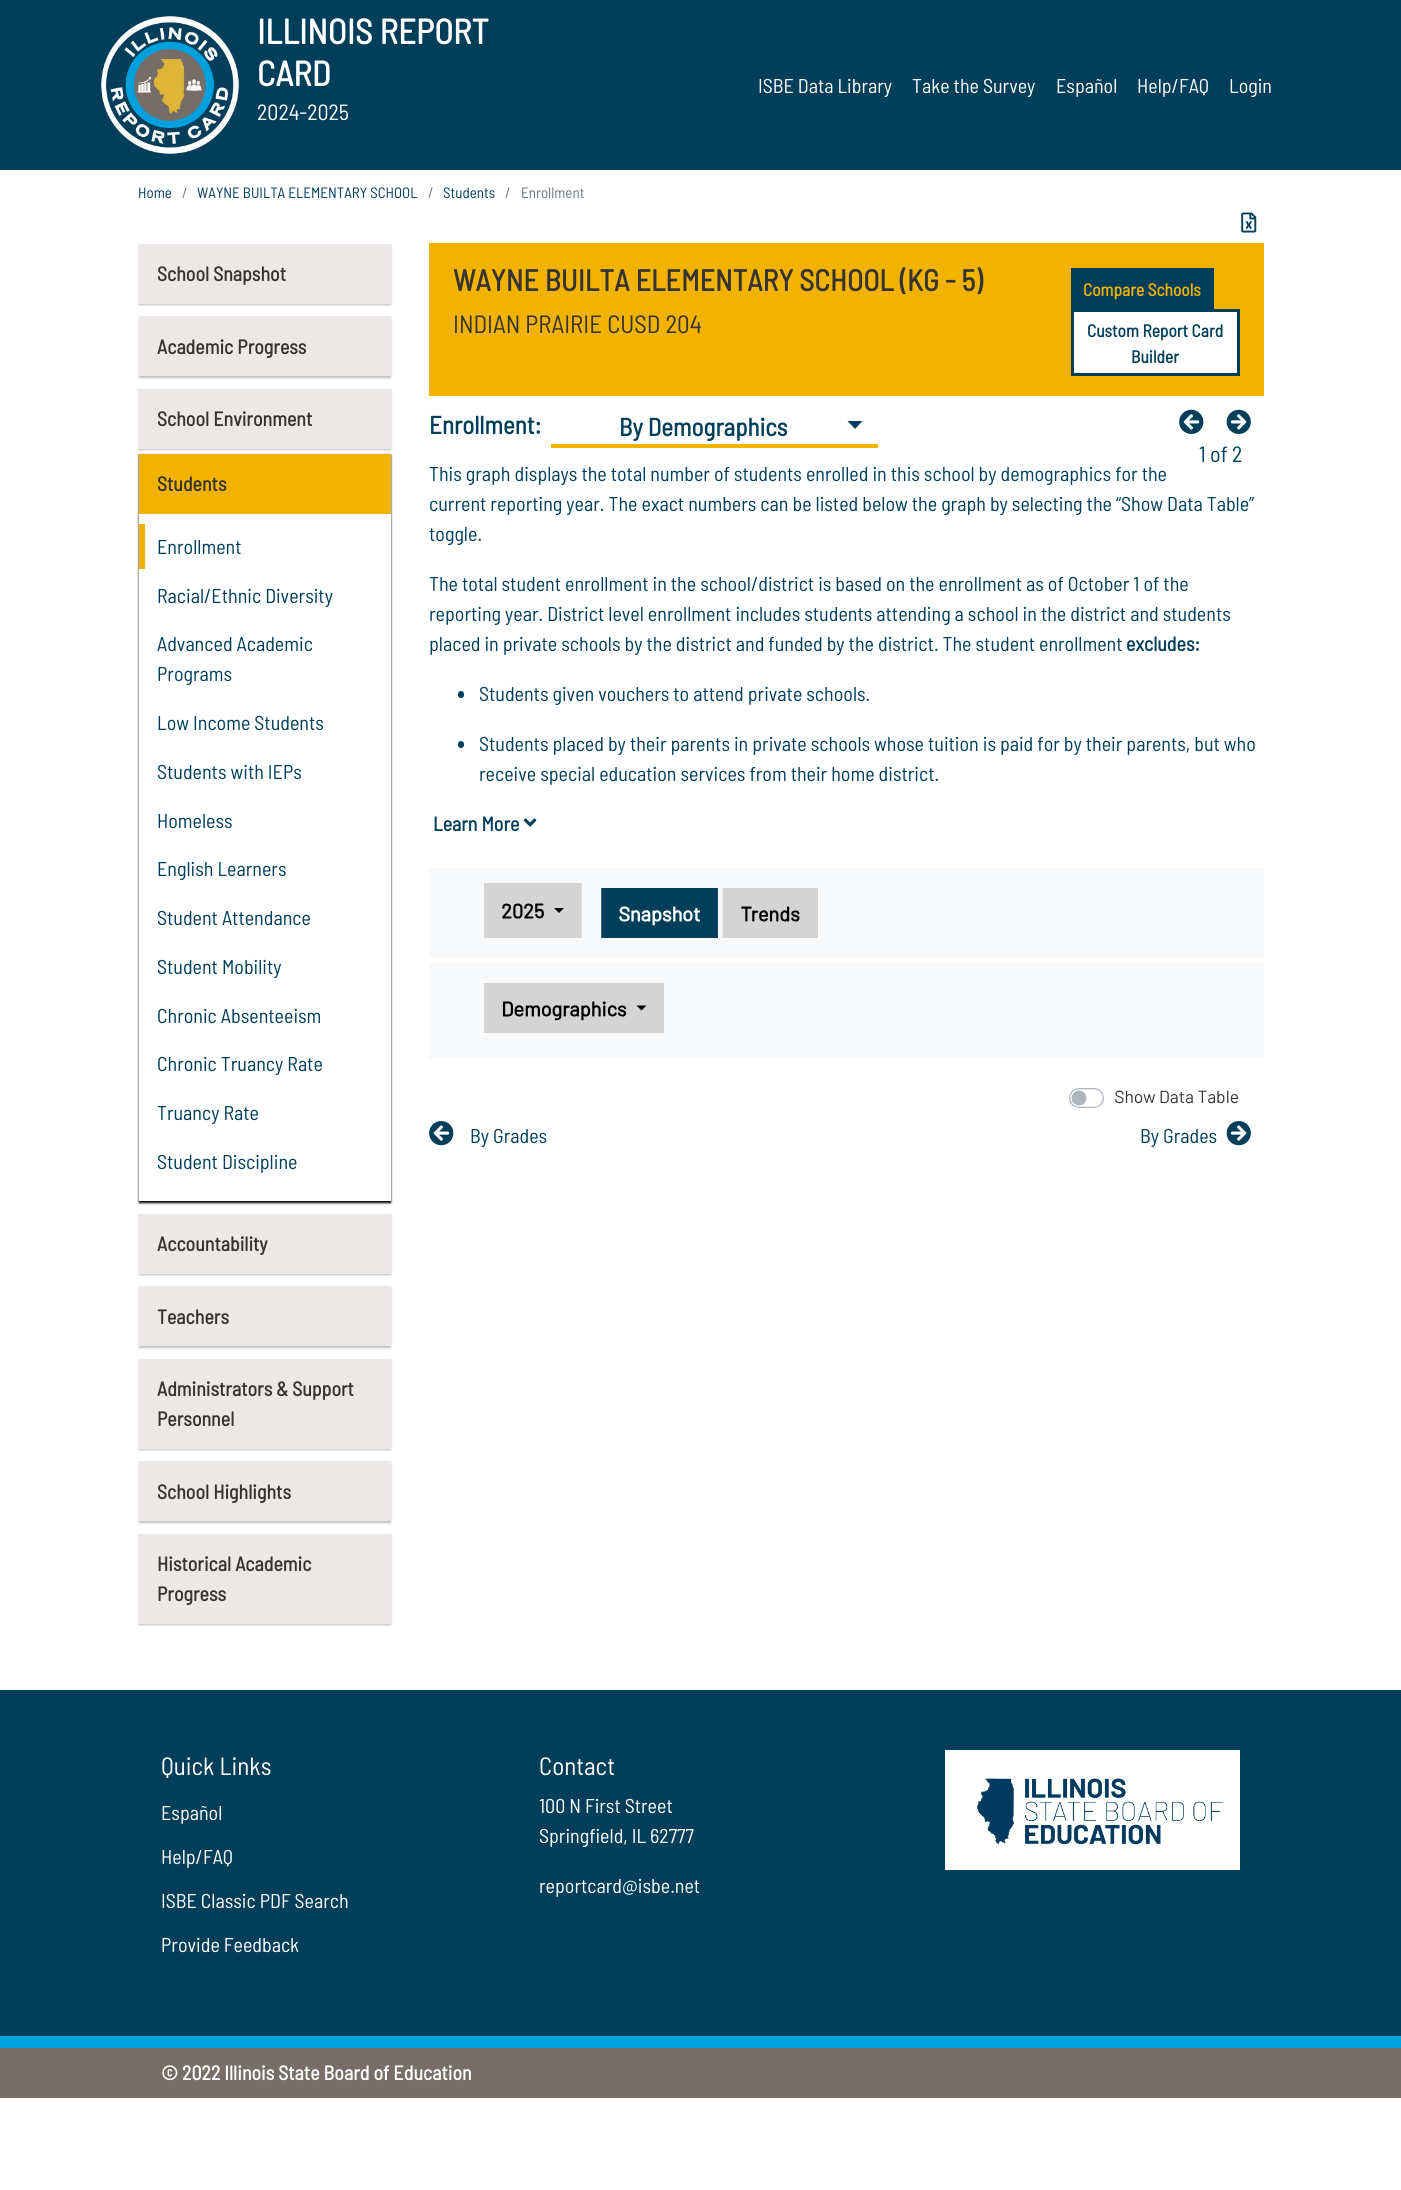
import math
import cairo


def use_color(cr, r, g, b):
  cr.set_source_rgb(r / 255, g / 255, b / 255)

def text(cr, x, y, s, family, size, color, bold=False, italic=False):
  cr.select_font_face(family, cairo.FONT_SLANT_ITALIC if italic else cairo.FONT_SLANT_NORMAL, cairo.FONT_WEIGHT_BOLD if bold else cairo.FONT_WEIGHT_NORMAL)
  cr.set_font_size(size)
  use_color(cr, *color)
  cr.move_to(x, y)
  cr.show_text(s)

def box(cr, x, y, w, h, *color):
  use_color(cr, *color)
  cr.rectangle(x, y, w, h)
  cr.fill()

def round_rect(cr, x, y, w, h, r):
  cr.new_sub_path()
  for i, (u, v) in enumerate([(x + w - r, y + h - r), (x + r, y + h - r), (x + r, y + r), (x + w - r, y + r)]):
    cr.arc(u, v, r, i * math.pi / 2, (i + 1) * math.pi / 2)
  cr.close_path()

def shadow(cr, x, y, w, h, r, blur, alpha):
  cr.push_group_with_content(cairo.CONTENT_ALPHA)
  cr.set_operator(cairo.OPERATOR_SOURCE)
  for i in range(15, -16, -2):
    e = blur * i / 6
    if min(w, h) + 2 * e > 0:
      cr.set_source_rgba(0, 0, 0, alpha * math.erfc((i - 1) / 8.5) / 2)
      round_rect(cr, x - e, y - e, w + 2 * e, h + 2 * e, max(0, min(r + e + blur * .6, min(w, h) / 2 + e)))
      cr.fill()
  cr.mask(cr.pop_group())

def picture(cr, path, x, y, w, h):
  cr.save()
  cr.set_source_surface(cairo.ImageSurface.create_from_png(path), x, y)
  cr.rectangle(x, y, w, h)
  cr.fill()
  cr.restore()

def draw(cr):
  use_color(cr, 255, 255, 255)
  cr.paint()
  box(cr, 0, 0, 1401, 170, 0, 62, 90)
  picture(cr, "img_01.png", 101, 16, 138, 138)
  use_color(cr, 0, 0, 0)
  shadow(cr, 139, 245, 252, 60, 0, 1, 0.25)
  box(cr, 139, 244, 252, 60, 235, 232, 231)
  use_color(cr, 0, 0, 0)
  shadow(cr, 139, 318, 252, 60, 0, 1, 0.25)
  box(cr, 139, 316, 252, 60, 235, 232, 231)
  use_color(cr, 0, 0, 0)
  shadow(cr, 139, 390, 252, 60, 0, 1, 0.25)
  box(cr, 139, 389, 252, 60, 235, 232, 231)
  cr.save()
  cr.set_fill_rule(cairo.FILL_RULE_EVEN_ODD)
  cr.new_path()
  cr.move_to(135, 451)
  cr.line_to(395, 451)
  cr.line_to(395, 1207)
  cr.line_to(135, 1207)
  cr.close_path()
  cr.move_to(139, 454)
  cr.line_to(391, 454)
  cr.line_to(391, 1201)
  cr.line_to(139, 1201)
  cr.close_path()
  cr.clip()
  use_color(cr, 0, 0, 0)
  shadow(cr, 139, 455, 252, 748, 0, 1, 1)
  cr.restore()
  box(cr, 139, 454, 252, 60, 241, 179, 0)
  box(cr, 139, 524, 6, 45, 241, 179, 0)
  use_color(cr, 0, 0, 0)
  shadow(cr, 139, 1215, 252, 60, 0, 1, 0.25)
  box(cr, 139, 1214, 252, 60, 235, 232, 231)
  use_color(cr, 0, 0, 0)
  shadow(cr, 139, 1288, 252, 60, 0, 1, 0.25)
  box(cr, 139, 1286, 252, 60, 235, 232, 231)
  use_color(cr, 0, 0, 0)
  shadow(cr, 139, 1360, 252, 90, 0, 1, 0.25)
  box(cr, 139, 1359, 252, 90, 235, 232, 231)
  use_color(cr, 0, 0, 0)
  shadow(cr, 139, 1463, 252, 60, 0, 1, 0.25)
  box(cr, 139, 1461, 252, 60, 235, 232, 231)
  use_color(cr, 0, 0, 0)
  shadow(cr, 139, 1535, 252, 90, 0, 1, 0.25)
  box(cr, 139, 1534, 252, 90, 235, 232, 231)
  picture(cr, "img_02.png", 1241, 212, 16, 21)
  cr.rectangle(431.5, 245.5, 830, 148)
  use_color(cr, 241, 179, 0)
  cr.set_line_width(5)
  cr.stroke()
  box(cr, 434, 248, 825, 143, 241, 179, 0)
  box(cr, 1071, 268, 143, 41, 0, 62, 90)
  use_color(cr, 255, 255, 255)
  cr.rectangle(1072.5, 310.5, 166, 64)
  cr.fill_preserve()
  use_color(cr, 0, 62, 90)
  cr.set_line_width(3)
  cr.stroke()
  box(cr, 551, 444, 327, 4, 241, 179, 0)
  use_color(cr, 0, 62, 95)
  cr.new_path()
  cr.move_to(847.5, 421)
  cr.line_to(862.5, 421)
  cr.line_to(855, 429)
  cr.close_path()
  cr.fill()
  picture(cr, "img_03.png", 1179, 409, 25, 25)
  picture(cr, "img_04.png", 1226, 409, 25, 25)
  use_color(cr, 0, 62, 90)
  round_rect(cr, 458, 691, 6, 7, 3)
  cr.fill()
  round_rect(cr, 458, 741, 6, 7, 3)
  cr.fill()
  picture(cr, "img_05.png", 523, 818, 14, 9)
  picture(cr, "img_06.png", 429, 858, 835, 250)
  picture(cr, "img_07.png", 429, 1121, 25, 25)
  picture(cr, "img_08.png", 1226, 1121, 25, 25)
  box(cr, 0, 1690, 1401, 346, 0, 62, 90)
  box(cr, 945, 1750, 295, 120, 255, 255, 255)
  picture(cr, "img_09.png", 977, 1778, 246, 67)
  box(cr, 0, 2048, 1401, 50, 119, 110, 103)
  box(cr, 0, 2036, 1401, 12, 0, 163, 222)
  text(cr, 257, 44, "ILLINOIS REPORT", "Barlow Semi Condensed", 35, (255, 255, 255), bold=True)
  text(cr, 257, 86, "CARD", "Barlow Semi Condensed", 35, (255, 255, 255), bold=True)
  text(cr, 257, 120, "2024-2025", "Barlow Semi Condensed", 22, (255, 255, 255))
  text(cr, 758, 93, "ISBE Data Library", "Barlow Semi Condensed", 20, (255, 255, 255))
  text(cr, 912, 93, "Take the Survey", "Barlow Semi Condensed", 20, (255, 255, 255))
  text(cr, 1056, 93, "Español", "Barlow Semi Condensed", 20, (255, 255, 255))
  text(cr, 1137, 93, "Help/FAQ", "Barlow Semi Condensed", 20, (255, 255, 255))
  text(cr, 1229, 93, "Login", "Barlow Semi Condensed", 20, (255, 255, 255))
  text(cr, 138, 198, "Home", "Barlow Semi Condensed", 15, (0, 62, 90))
  text(cr, 182, 198, "/", "Barlow Semi Condensed", 15, (108, 117, 125))
  text(cr, 197, 198, "WAYNE BUILTA ELEMENTARY SCHOOL", "Barlow Semi Condensed", 15, (0, 62, 90))
  text(cr, 428, 198, "/", "Barlow Semi Condensed", 15, (108, 117, 125))
  text(cr, 443, 198, "Students", "Barlow Semi Condensed", 15, (0, 62, 90))
  text(cr, 505, 198, "/", "Barlow Semi Condensed", 15, (108, 117, 125))
  text(cr, 521, 198, "Enrollment", "Barlow Semi Condensed", 15, (108, 117, 125))
  text(cr, 157, 281, "School Snapshot", "Barlow Semi Condensed", 20, (54, 51, 48), bold=True)
  text(cr, 157, 354, "Academic Progress", "Barlow Semi Condensed", 20, (54, 51, 48), bold=True)
  text(cr, 157, 426, "School Environment", "Barlow Semi Condensed", 20, (54, 51, 48), bold=True)
  text(cr, 157, 491, "Students", "Barlow Semi Condensed", 20, (54, 51, 48), bold=True)
  text(cr, 157, 554, "Enrollment", "Barlow Semi Condensed", 20, (0, 62, 90))
  text(cr, 157, 603, "Racial/Ethnic Diversity", "Barlow Semi Condensed", 20, (0, 62, 90))
  text(cr, 157, 651, "Advanced Academic", "Barlow Semi Condensed", 20, (0, 62, 90))
  text(cr, 157, 681, "Programs", "Barlow Semi Condensed", 20, (0, 62, 90))
  text(cr, 157, 730, "Low Income Students", "Barlow Semi Condensed", 20, (0, 62, 90))
  text(cr, 157, 779, "Students with IEPs", "Barlow Semi Condensed", 20, (0, 62, 90))
  text(cr, 157, 828, "Homeless", "Barlow Semi Condensed", 20, (0, 62, 90))
  text(cr, 157, 876, "English Learners", "Barlow Semi Condensed", 20, (0, 62, 90))
  text(cr, 157, 925, "Student Attendance", "Barlow Semi Condensed", 20, (0, 62, 90))
  text(cr, 157, 974, "Student Mobility", "Barlow Semi Condensed", 20, (0, 62, 90))
  text(cr, 157, 1023, "Chronic Absenteeism", "Barlow Semi Condensed", 20, (0, 62, 90))
  text(cr, 157, 1071, "Chronic Truancy Rate", "Barlow Semi Condensed", 20, (0, 62, 90))
  text(cr, 157, 1120, "Truancy Rate", "Barlow Semi Condensed", 20, (0, 62, 90))
  text(cr, 157, 1169, "Student Discipline", "Barlow Semi Condensed", 20, (0, 62, 90))
  text(cr, 157, 1251, "Accountability", "Barlow Semi Condensed", 20, (54, 51, 48), bold=True)
  text(cr, 157, 1324, "Teachers", "Barlow Semi Condensed", 20, (54, 51, 48), bold=True)
  text(cr, 157, 1396, "Administrators & Support", "Barlow Semi Condensed", 20, (54, 51, 48), bold=True)
  text(cr, 157, 1426, "Personnel", "Barlow Semi Condensed", 20, (54, 51, 48), bold=True)
  text(cr, 157, 1499, "School Highlights", "Barlow Semi Condensed", 20, (54, 51, 48), bold=True)
  text(cr, 157, 1571, "Historical Academic", "Barlow Semi Condensed", 20, (54, 51, 48), bold=True)
  text(cr, 157, 1601, "Progress", "Barlow Semi Condensed", 20, (54, 51, 48), bold=True)
  text(cr, 453, 291, "WAYNE BUILTA ELEMENTARY SCHOOL (KG - 5)", "Barlow Semi Condensed", 30, (54, 51, 48), bold=True)
  text(cr, 453, 333, "INDIAN PRAIRIE CUSD 204", "Barlow Semi Condensed", 25, (54, 51, 48))
  text(cr, 1083, 296, "Compare Schools", "Barlow Semi Condensed", 17.5, (241, 179, 0), bold=True)
  text(cr, 1087, 337, "Custom Report Card", "Barlow Semi Condensed", 17.5, (0, 62, 90), bold=True)
  text(cr, 1131, 363, "Builder", "Barlow Semi Condensed", 17.5, (0, 62, 90), bold=True)
  text(cr, 429, 434, "Enrollment:", "Barlow Semi Condensed", 25, (0, 62, 90), bold=True)
  text(cr, 619, 436, "By Demographics", "Barlow Semi Condensed", 25, (0, 62, 90), bold=True)
  text(cr, 1199, 462, "1 of 2", "Barlow Semi Condensed", 22, (0, 62, 90))
  text(cr, 429, 481, "This graph displays the total number of students enrolled in this school by demographics for the", "Barlow Semi Condensed", 20, (0, 62, 90))
  text(cr, 429, 511, "current reporting year. The exact numbers can be listed below the graph by selecting the “Show Data Table”", "Barlow Semi Condensed", 20, (0, 62, 90))
  text(cr, 429, 541, "toggle.", "Barlow Semi Condensed", 20, (0, 62, 90))
  text(cr, 429, 591, "The total student enrollment in the school/district is based on the enrollment as of October 1 of the", "Barlow Semi Condensed", 20, (0, 62, 90))
  text(cr, 429, 621, "reporting year. District level enrollment includes students attending a school in the district and students", "Barlow Semi Condensed", 20, (0, 62, 90))
  text(cr, 429, 651, "placed in private schools by the district and funded by the district. The student enrollment", "Barlow Semi Condensed", 20, (0, 62, 90))
  text(cr, 1126, 651, "excludes:", "Barlow Semi Condensed", 20, (0, 62, 90), bold=True)
  text(cr, 479, 701, "Students given vouchers to attend private schools.", "Barlow Semi Condensed", 20, (0, 62, 90))
  text(cr, 479, 751, "Students placed by their parents in private schools whose tuition is paid for by their parents, but who", "Barlow Semi Condensed", 20, (0, 62, 90))
  text(cr, 479, 781, "receive special education services from their home district.", "Barlow Semi Condensed", 20, (0, 62, 90))
  text(cr, 433, 831, "Learn More", "Barlow Semi Condensed", 20, (0, 62, 90), bold=True)
  text(cr, 470, 1143, "By Grades", "Barlow Semi Condensed", 20, (0, 62, 90))
  text(cr, 1140, 1143, "By Grades", "Barlow Semi Condensed", 20, (0, 62, 90))
  text(cr, 161, 1775, "Quick Links", "Barlow Semi Condensed", 25, (255, 255, 255))
  text(cr, 161, 1820, "Español", "Barlow Semi Condensed", 20, (255, 255, 255))
  text(cr, 161, 1864, "Help/FAQ", "Barlow Semi Condensed", 20, (255, 255, 255))
  text(cr, 161, 1908, "ISBE Classic PDF Search", "Barlow Semi Condensed", 20, (255, 255, 255))
  text(cr, 161, 1952, "Provide Feedback", "Barlow Semi Condensed", 20, (255, 255, 255))
  text(cr, 539, 1775, "Contact", "Barlow Semi Condensed", 25, (255, 255, 255))
  text(cr, 539, 1813, "100 N First Street", "Barlow Semi Condensed", 20, (255, 255, 255))
  text(cr, 539, 1843, "Springfield, IL 62777", "Barlow Semi Condensed", 20, (255, 255, 255))
  text(cr, 539, 1893, "reportcard@isbe.net", "Barlow Semi Condensed", 20, (255, 255, 255))
  text(cr, 161, 2080, "© 2022 Illinois State Board of Education", "Barlow Semi Condensed", 20, (255, 255, 255), bold=True)


surface = cairo.ImageSurface(cairo.FORMAT_RGB24, 1401, 2190)
cr = cairo.Context(surface)
options = cairo.FontOptions()
options.set_hint_metrics(cairo.HINT_METRICS_OFF)
options.set_hint_style(cairo.HINT_STYLE_NONE)
cr.set_font_options(options)
cr.set_miter_limit(4)
draw(cr)
surface.write_to_png("out.png")
